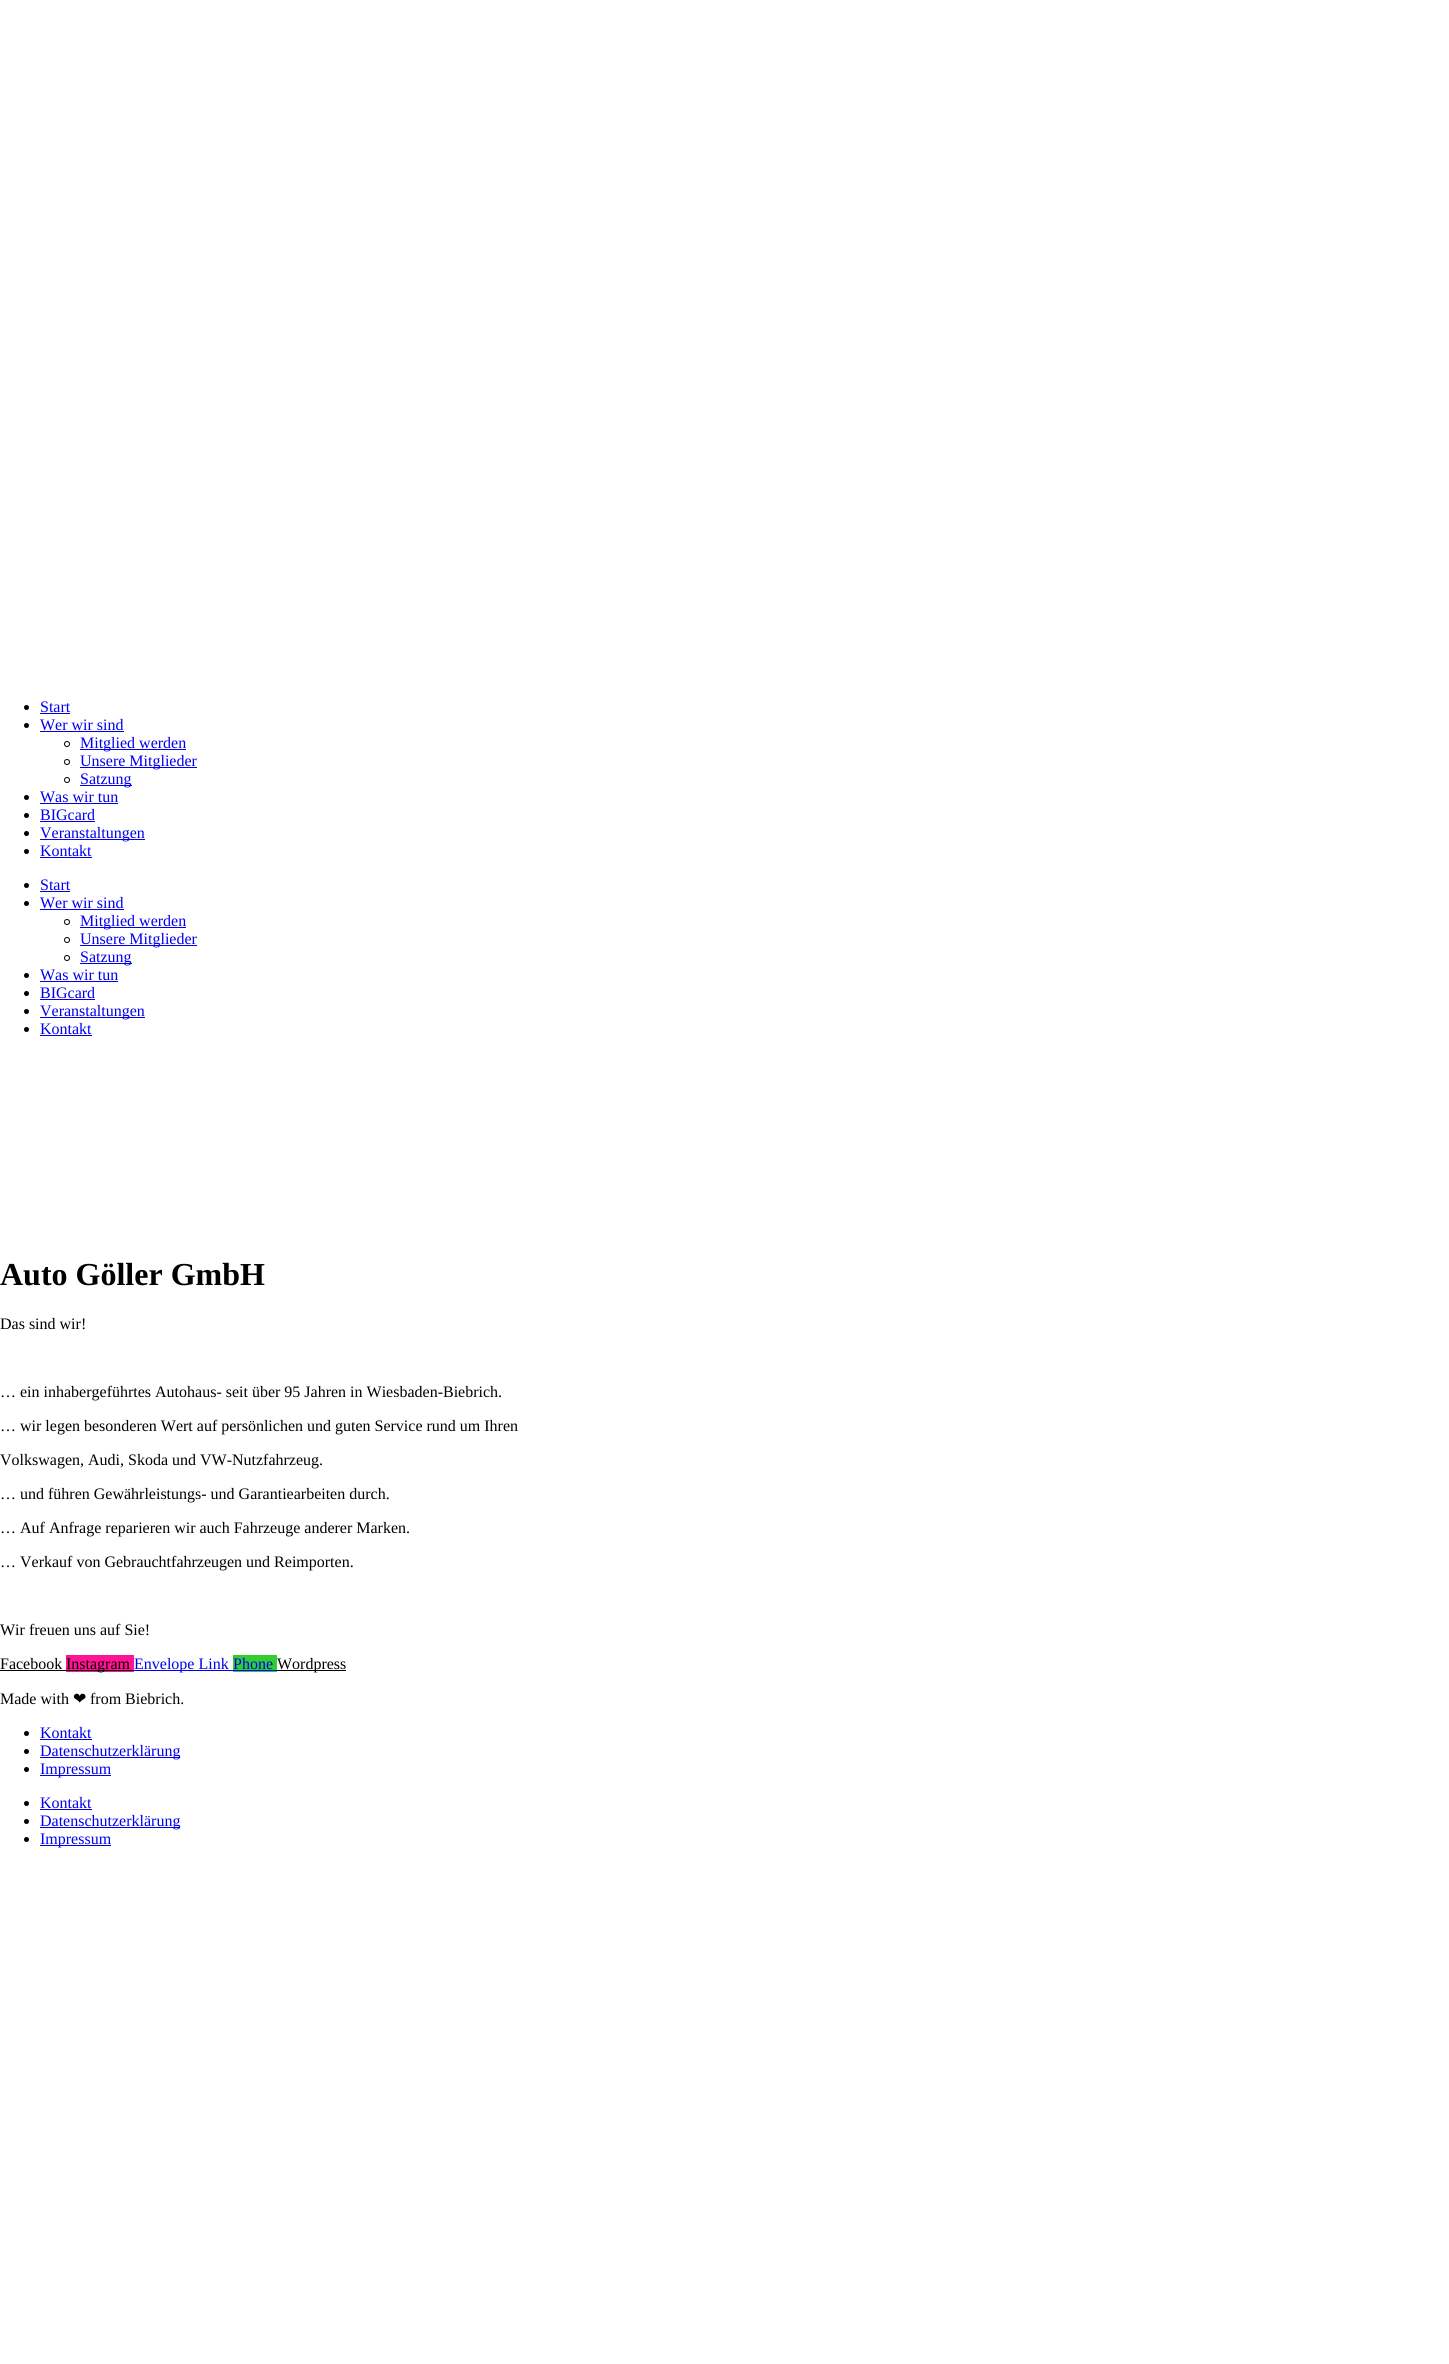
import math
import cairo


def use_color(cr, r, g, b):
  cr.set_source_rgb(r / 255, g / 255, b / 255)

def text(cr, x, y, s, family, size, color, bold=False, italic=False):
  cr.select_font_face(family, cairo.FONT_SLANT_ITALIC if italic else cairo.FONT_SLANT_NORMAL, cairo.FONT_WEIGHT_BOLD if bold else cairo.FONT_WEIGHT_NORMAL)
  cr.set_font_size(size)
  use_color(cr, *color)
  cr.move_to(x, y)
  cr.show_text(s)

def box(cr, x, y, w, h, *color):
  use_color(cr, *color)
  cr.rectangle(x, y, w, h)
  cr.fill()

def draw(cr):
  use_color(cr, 255, 255, 255)
  cr.paint()
  use_color(cr, 0, 0, 0)
  cr.arc(26.5, 707.5, 2.5, 0, 2 * math.pi)
  cr.fill()
  box(cr, 40, 713, 30, 1, 0, 0, 238)
  use_color(cr, 0, 0, 0)
  cr.arc(26.5, 725.5, 2.5, 0, 2 * math.pi)
  cr.fill()
  box(cr, 40, 731, 84, 1, 0, 0, 238)
  cr.arc(67, 744, 2.5, 0, 2 * math.pi)
  use_color(cr, 0, 0, 0)
  cr.set_line_width(1)
  cr.stroke()
  box(cr, 80, 749, 106, 1, 0, 0, 238)
  cr.arc(67, 762, 2.5, 0, 2 * math.pi)
  use_color(cr, 0, 0, 0)
  cr.stroke()
  box(cr, 80, 767, 117, 1, 0, 0, 238)
  cr.arc(67, 780, 2.5, 0, 2 * math.pi)
  use_color(cr, 0, 0, 0)
  cr.stroke()
  box(cr, 80, 785, 52, 1, 0, 0, 238)
  use_color(cr, 0, 0, 0)
  cr.arc(26.5, 797.5, 2.5, 0, 2 * math.pi)
  cr.fill()
  box(cr, 40, 803, 78, 1, 0, 0, 238)
  use_color(cr, 0, 0, 0)
  cr.arc(26.5, 815.5, 2.5, 0, 2 * math.pi)
  cr.fill()
  box(cr, 40, 821, 55, 1, 0, 0, 238)
  use_color(cr, 0, 0, 0)
  cr.arc(26.5, 833.5, 2.5, 0, 2 * math.pi)
  cr.fill()
  box(cr, 40, 839, 105, 1, 0, 0, 238)
  use_color(cr, 0, 0, 0)
  cr.arc(26.5, 851.5, 2.5, 0, 2 * math.pi)
  cr.fill()
  box(cr, 40, 857, 52, 1, 0, 0, 238)
  use_color(cr, 0, 0, 0)
  cr.arc(26.5, 885.5, 2.5, 0, 2 * math.pi)
  cr.fill()
  box(cr, 40, 891, 30, 1, 0, 0, 238)
  use_color(cr, 0, 0, 0)
  cr.arc(26.5, 903.5, 2.5, 0, 2 * math.pi)
  cr.fill()
  box(cr, 40, 909, 84, 1, 0, 0, 238)
  cr.arc(67, 922, 2.5, 0, 2 * math.pi)
  use_color(cr, 0, 0, 0)
  cr.stroke()
  box(cr, 80, 927, 106, 1, 0, 0, 238)
  cr.arc(67, 940, 2.5, 0, 2 * math.pi)
  use_color(cr, 0, 0, 0)
  cr.stroke()
  box(cr, 80, 945, 117, 1, 0, 0, 238)
  cr.arc(67, 958, 2.5, 0, 2 * math.pi)
  use_color(cr, 0, 0, 0)
  cr.stroke()
  box(cr, 80, 963, 52, 1, 0, 0, 238)
  use_color(cr, 0, 0, 0)
  cr.arc(26.5, 975.5, 2.5, 0, 2 * math.pi)
  cr.fill()
  box(cr, 40, 981, 78, 1, 0, 0, 238)
  use_color(cr, 0, 0, 0)
  cr.arc(26.5, 993.5, 2.5, 0, 2 * math.pi)
  cr.fill()
  box(cr, 40, 999, 55, 1, 0, 0, 238)
  use_color(cr, 0, 0, 0)
  cr.arc(26.5, 1011.5, 2.5, 0, 2 * math.pi)
  cr.fill()
  box(cr, 40, 1017, 105, 1, 0, 0, 238)
  use_color(cr, 0, 0, 0)
  cr.arc(26.5, 1029.5, 2.5, 0, 2 * math.pi)
  cr.fill()
  box(cr, 40, 1035, 52, 1, 0, 0, 238)
  box(cr, 0, 1670, 66, 1, 0, 0, 0)
  box(cr, 66, 1655, 68, 17, 255, 20, 147)
  box(cr, 66, 1670, 68, 1, 0, 0, 0)
  box(cr, 134, 1670, 99, 1, 0, 0, 238)
  box(cr, 233, 1655, 44, 17, 50, 205, 50)
  box(cr, 233, 1670, 44, 1, 0, 0, 238)
  box(cr, 277, 1670, 69, 1, 0, 0, 0)
  cr.arc(26.5, 1733.5, 2.5, 0, 2 * math.pi)
  cr.fill()
  box(cr, 40, 1739, 52, 1, 0, 0, 238)
  use_color(cr, 0, 0, 0)
  cr.arc(26.5, 1751.5, 2.5, 0, 2 * math.pi)
  cr.fill()
  box(cr, 40, 1757, 140, 1, 0, 0, 238)
  use_color(cr, 0, 0, 0)
  cr.arc(26.5, 1769.5, 2.5, 0, 2 * math.pi)
  cr.fill()
  box(cr, 40, 1775, 71, 1, 0, 0, 238)
  use_color(cr, 0, 0, 0)
  cr.arc(26.5, 1803.5, 2.5, 0, 2 * math.pi)
  cr.fill()
  box(cr, 40, 1809, 52, 1, 0, 0, 238)
  use_color(cr, 0, 0, 0)
  cr.arc(26.5, 1821.5, 2.5, 0, 2 * math.pi)
  cr.fill()
  box(cr, 40, 1827, 140, 1, 0, 0, 238)
  use_color(cr, 0, 0, 0)
  cr.arc(26.5, 1839.5, 2.5, 0, 2 * math.pi)
  cr.fill()
  box(cr, 40, 1845, 71, 1, 0, 0, 238)
  text(cr, 40, 712, "Start", "Liberation Serif", 16, (0, 0, 238))
  text(cr, 40, 730, "Wer wir sind", "Liberation Serif", 16, (0, 0, 238))
  text(cr, 80, 748, "Mitglied werden", "Liberation Serif", 16, (0, 0, 238))
  text(cr, 80, 766, "Unsere Mitglieder", "Liberation Serif", 16, (0, 0, 238))
  text(cr, 80, 784, "Satzung", "Liberation Serif", 16, (0, 0, 238))
  text(cr, 40, 802, "Was wir tun", "Liberation Serif", 16, (0, 0, 238))
  text(cr, 40, 820, "BIGcard", "Liberation Serif", 16, (0, 0, 238))
  text(cr, 40, 838, "Veranstaltungen", "Liberation Serif", 16, (0, 0, 238))
  text(cr, 40, 856, "Kontakt", "Liberation Serif", 16, (0, 0, 238))
  text(cr, 40, 890, "Start", "Liberation Serif", 16, (0, 0, 238))
  text(cr, 40, 908, "Wer wir sind", "Liberation Serif", 16, (0, 0, 238))
  text(cr, 80, 926, "Mitglied werden", "Liberation Serif", 16, (0, 0, 238))
  text(cr, 80, 944, "Unsere Mitglieder", "Liberation Serif", 16, (0, 0, 238))
  text(cr, 80, 962, "Satzung", "Liberation Serif", 16, (0, 0, 238))
  text(cr, 40, 980, "Was wir tun", "Liberation Serif", 16, (0, 0, 238))
  text(cr, 40, 998, "BIGcard", "Liberation Serif", 16, (0, 0, 238))
  text(cr, 40, 1016, "Veranstaltungen", "Liberation Serif", 16, (0, 0, 238))
  text(cr, 40, 1034, "Kontakt", "Liberation Serif", 16, (0, 0, 238))
  text(cr, 0, 1285, "Auto Göller GmbH", "Liberation Serif", 32, (0, 0, 0), bold=True)
  text(cr, 0, 1329, "Das sind wir!", "Liberation Serif", 16, (0, 0, 0))
  text(cr, 0, 1397, "… ein inhabergeführtes Autohaus- seit über 95 Jahren in Wiesbaden-Biebrich.", "Liberation Serif", 16, (0, 0, 0))
  text(cr, 0, 1431, "… wir legen besonderen Wert auf persönlichen und guten Service rund um Ihren", "Liberation Serif", 16, (0, 0, 0))
  text(cr, 0, 1465, "Volkswagen, Audi, Skoda und VW-Nutzfahrzeug.", "Liberation Serif", 16, (0, 0, 0))
  text(cr, 0, 1499, "… und führen Gewährleistungs- und Garantiearbeiten durch.", "Liberation Serif", 16, (0, 0, 0))
  text(cr, 0, 1533, "… Auf Anfrage reparieren wir auch Fahrzeuge anderer Marken.", "Liberation Serif", 16, (0, 0, 0))
  text(cr, 0, 1567, "… Verkauf von Gebrauchtfahrzeugen und Reimporten.", "Liberation Serif", 16, (0, 0, 0))
  text(cr, 0, 1635, "Wir freuen uns auf Sie!", "Liberation Serif", 16, (0, 0, 0))
  text(cr, 0, 1669, "Facebook", "Liberation Serif", 16, (0, 0, 0))
  text(cr, 66, 1669, "Instagram", "Liberation Serif", 16, (0, 0, 0))
  text(cr, 134, 1669, "Envelope Link", "Liberation Serif", 16, (0, 0, 238))
  text(cr, 233, 1669, "Phone", "Liberation Serif", 16, (0, 0, 238))
  text(cr, 277, 1669, "Wordpress", "Liberation Serif", 16, (0, 0, 0))
  text(cr, 0, 1704, "Made with", "Liberation Serif", 16, (0, 0, 0))
  text(cr, 73, 1704, "❤", "DejaVu Sans", 16, (0, 0, 0))
  text(cr, 90, 1704, "from Biebrich.", "Liberation Serif", 16, (0, 0, 0))
  text(cr, 40, 1738, "Kontakt", "Liberation Serif", 16, (0, 0, 238))
  text(cr, 40, 1756, "Datenschutzerklärung", "Liberation Serif", 16, (0, 0, 238))
  text(cr, 40, 1774, "Impressum", "Liberation Serif", 16, (0, 0, 238))
  text(cr, 40, 1808, "Kontakt", "Liberation Serif", 16, (0, 0, 238))
  text(cr, 40, 1826, "Datenschutzerklärung", "Liberation Serif", 16, (0, 0, 238))
  text(cr, 40, 1844, "Impressum", "Liberation Serif", 16, (0, 0, 238))


surface = cairo.ImageSurface(cairo.FORMAT_RGB24, 1449, 2364)
cr = cairo.Context(surface)
options = cairo.FontOptions()
options.set_hint_metrics(cairo.HINT_METRICS_OFF)
options.set_hint_style(cairo.HINT_STYLE_NONE)
cr.set_font_options(options)
cr.set_miter_limit(4)
draw(cr)
surface.write_to_png("out.png")
